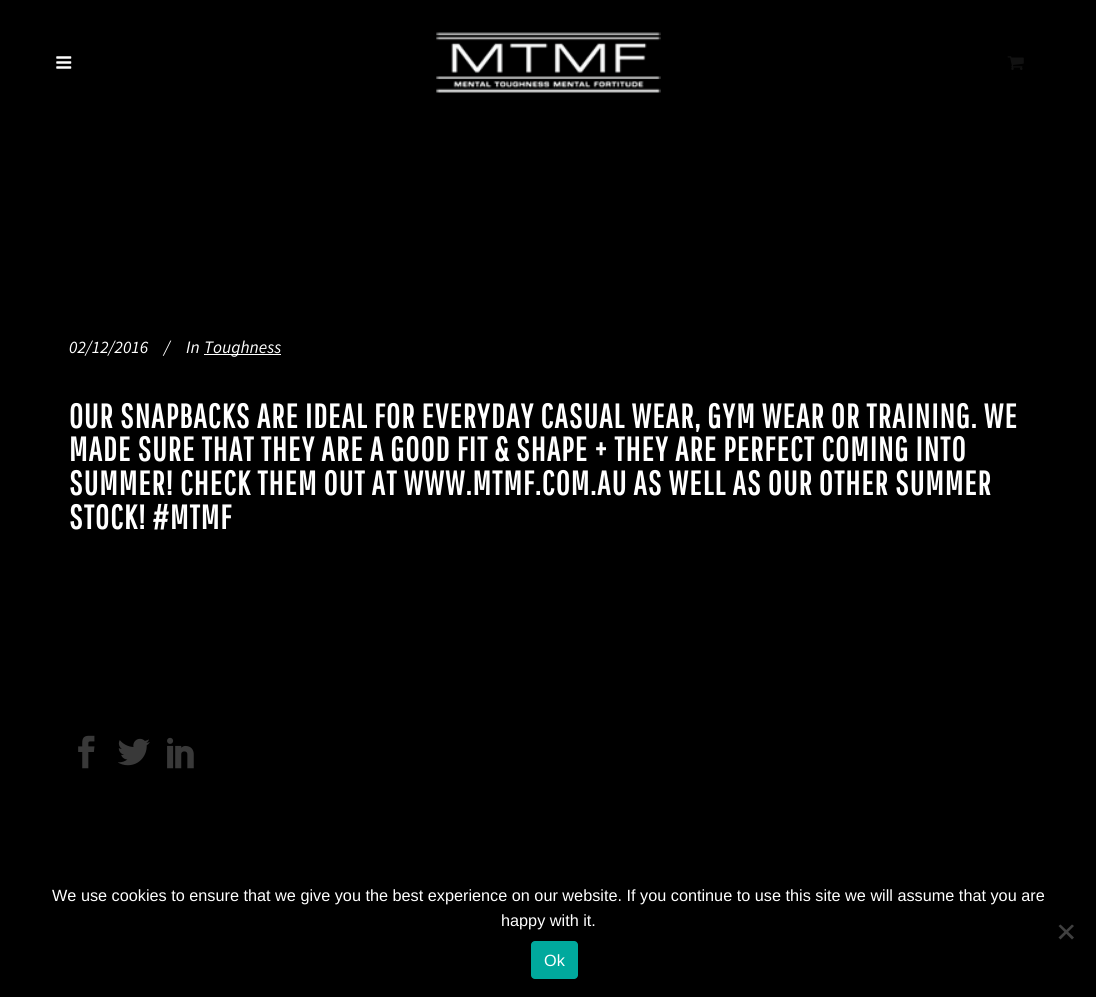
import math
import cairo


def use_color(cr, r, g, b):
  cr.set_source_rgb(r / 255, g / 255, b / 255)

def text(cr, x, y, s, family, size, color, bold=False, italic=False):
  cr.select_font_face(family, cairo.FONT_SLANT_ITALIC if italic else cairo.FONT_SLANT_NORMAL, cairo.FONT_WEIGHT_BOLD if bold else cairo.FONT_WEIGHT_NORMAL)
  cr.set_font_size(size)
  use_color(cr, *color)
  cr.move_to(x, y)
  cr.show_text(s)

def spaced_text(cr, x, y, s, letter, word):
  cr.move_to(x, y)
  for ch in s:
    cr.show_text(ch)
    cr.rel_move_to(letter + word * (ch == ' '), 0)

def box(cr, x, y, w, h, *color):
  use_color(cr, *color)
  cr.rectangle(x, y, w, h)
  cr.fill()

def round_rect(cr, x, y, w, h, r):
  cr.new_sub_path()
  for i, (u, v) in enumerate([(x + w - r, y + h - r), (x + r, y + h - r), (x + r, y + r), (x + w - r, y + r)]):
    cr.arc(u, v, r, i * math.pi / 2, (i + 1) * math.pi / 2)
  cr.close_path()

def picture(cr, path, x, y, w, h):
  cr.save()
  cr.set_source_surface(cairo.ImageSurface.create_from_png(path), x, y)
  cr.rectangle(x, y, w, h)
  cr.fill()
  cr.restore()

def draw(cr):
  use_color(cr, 0, 0, 0)
  cr.paint()
  picture(cr, "img_01.png", 56, 56, 16, 13)
  picture(cr, "img_02.png", 436, 32, 225, 61)
  picture(cr, "img_03.png", 1007, 56, 17, 14)
  box(cr, 204, 354, 77, 1, 255, 255, 255)
  picture(cr, "img_04.png", 78, 735, 17, 34)
  picture(cr, "img_05.png", 118, 738, 32, 28)
  picture(cr, "img_06.png", 167, 737, 27, 32)
  use_color(cr, 64, 64, 64)
  cr.new_path()
  cr.move_to(1072, 924.5)
  cr.line_to(1074, 926)
  cr.line_to(1060.5, 939.5)
  cr.line_to(1058.5, 937.5)
  cr.close_path()
  cr.fill()
  cr.new_path()
  cr.move_to(1058.5, 926)
  cr.line_to(1060.5, 924.5)
  cr.line_to(1074, 937.5)
  cr.line_to(1072, 939.5)
  cr.close_path()
  cr.fill()
  use_color(cr, 0, 169, 157)
  round_rect(cr, 531, 941, 47, 38, 4)
  cr.fill()
  text(cr, 69, 353, "02/12/2016", "Source Sans Pro", 17.5, (255, 255, 255), italic=True)
  text(cr, 164, 353, "/", "Source Sans Pro", 17.5, (255, 255, 255), italic=True)
  text(cr, 186, 353, "In", "Source Sans Pro", 17.5, (255, 255, 255), italic=True)
  text(cr, 204, 353, "Toughness", "Source Sans Pro", 17.5, (255, 255, 255), italic=True)
  cr.select_font_face("Pathway Gothic One", cairo.FONT_SLANT_NORMAL, cairo.FONT_WEIGHT_BOLD)
  cr.set_font_size(33.75)
  spaced_text(cr, 69, 428, "OUR SNAPBACKS ARE IDEAL FOR EVERYDAY CASUAL WEAR, GYM WEAR OR TRAINING. WE", 1.25, 0)
  spaced_text(cr, 69, 461, "MADE SURE THAT THEY ARE A GOOD FIT & SHAPE + THEY ARE PERFECT COMING INTO", 1.25, 0)
  spaced_text(cr, 69, 495, "SUMMER! CHECK THEM OUT AT WWW.MTMF.COM.AU AS WELL AS OUR OTHER SUMMER", 1.25, 0)
  spaced_text(cr, 69, 529, "STOCK! #MTMF", 1.25, 0)
  text(cr, 52, 901, "We use cookies to ensure that we give you the best experience on our website. If you continue to use this site we will assume that you are", "Liberation Sans", 16.25, (255, 255, 255))
  text(cr, 501, 926, "happy with it.", "Liberation Sans", 16.25, (255, 255, 255))
  text(cr, 544, 966, "Ok", "Liberation Sans", 16.25, (255, 255, 255))


surface = cairo.ImageSurface(cairo.FORMAT_RGB24, 1096, 997)
cr = cairo.Context(surface)
options = cairo.FontOptions()
options.set_hint_metrics(cairo.HINT_METRICS_OFF)
options.set_hint_style(cairo.HINT_STYLE_NONE)
cr.set_font_options(options)
cr.set_miter_limit(4)
draw(cr)
surface.write_to_png("out.png")
